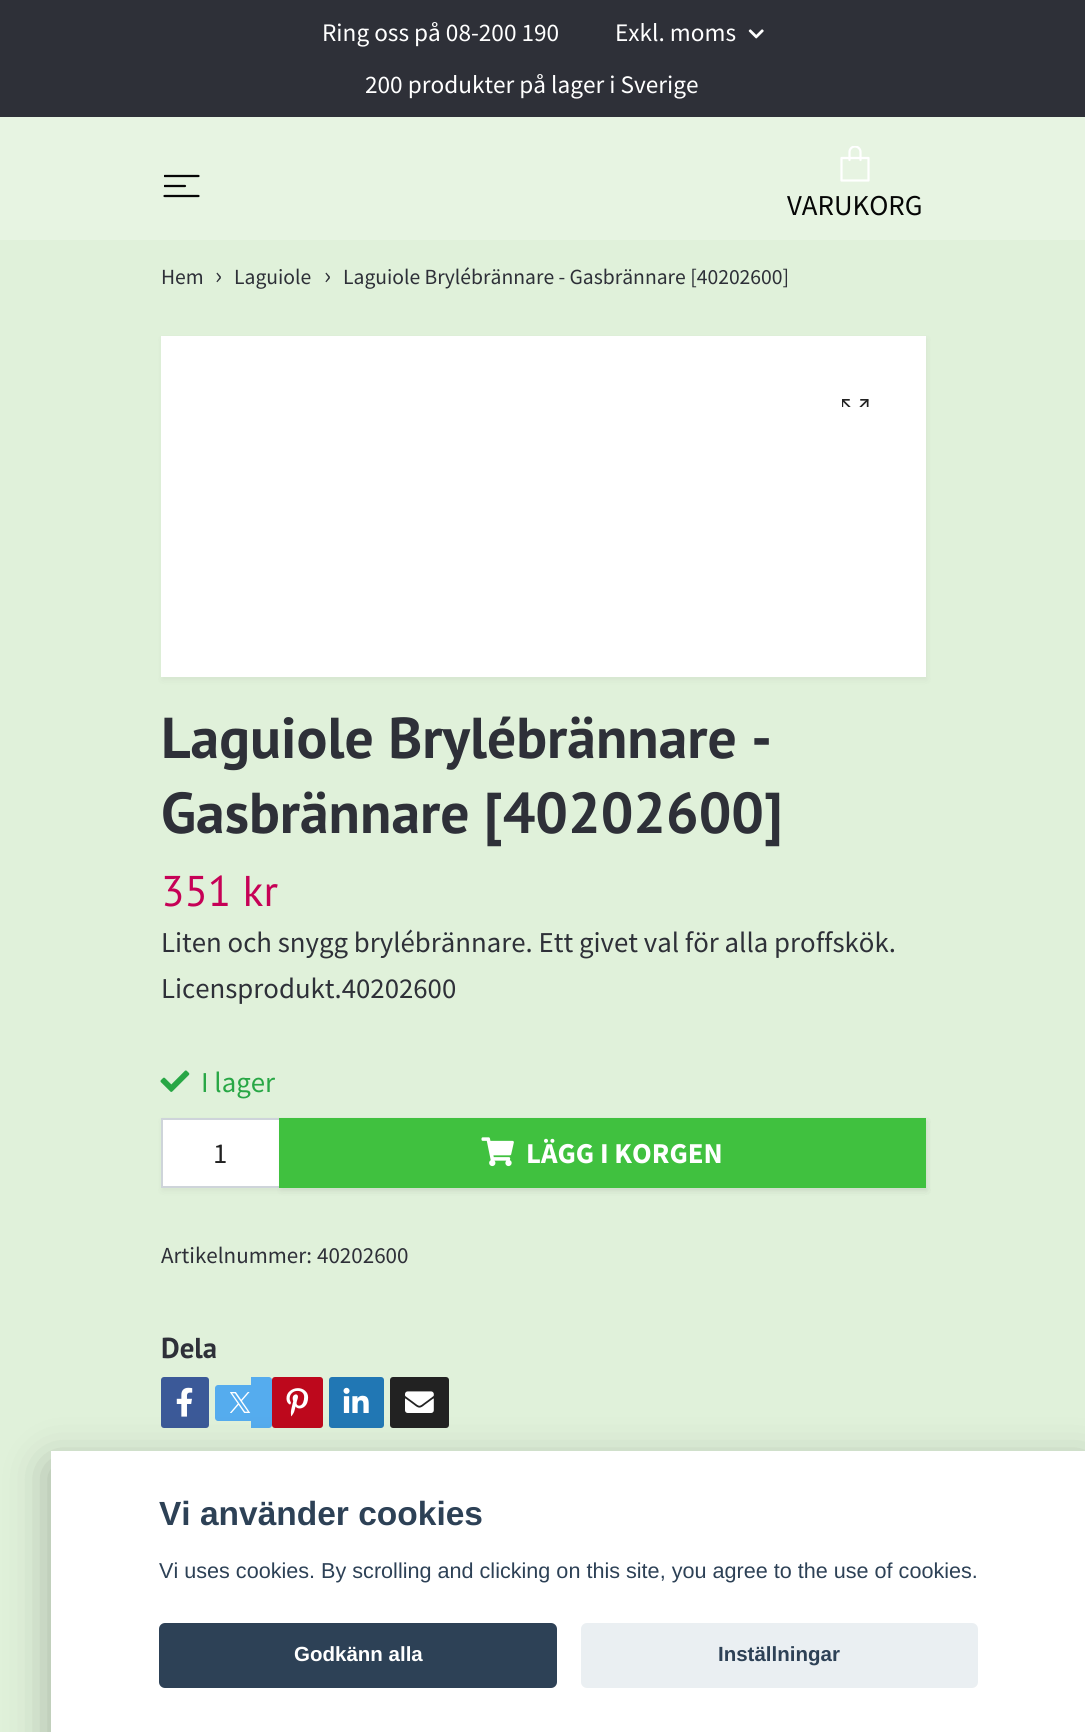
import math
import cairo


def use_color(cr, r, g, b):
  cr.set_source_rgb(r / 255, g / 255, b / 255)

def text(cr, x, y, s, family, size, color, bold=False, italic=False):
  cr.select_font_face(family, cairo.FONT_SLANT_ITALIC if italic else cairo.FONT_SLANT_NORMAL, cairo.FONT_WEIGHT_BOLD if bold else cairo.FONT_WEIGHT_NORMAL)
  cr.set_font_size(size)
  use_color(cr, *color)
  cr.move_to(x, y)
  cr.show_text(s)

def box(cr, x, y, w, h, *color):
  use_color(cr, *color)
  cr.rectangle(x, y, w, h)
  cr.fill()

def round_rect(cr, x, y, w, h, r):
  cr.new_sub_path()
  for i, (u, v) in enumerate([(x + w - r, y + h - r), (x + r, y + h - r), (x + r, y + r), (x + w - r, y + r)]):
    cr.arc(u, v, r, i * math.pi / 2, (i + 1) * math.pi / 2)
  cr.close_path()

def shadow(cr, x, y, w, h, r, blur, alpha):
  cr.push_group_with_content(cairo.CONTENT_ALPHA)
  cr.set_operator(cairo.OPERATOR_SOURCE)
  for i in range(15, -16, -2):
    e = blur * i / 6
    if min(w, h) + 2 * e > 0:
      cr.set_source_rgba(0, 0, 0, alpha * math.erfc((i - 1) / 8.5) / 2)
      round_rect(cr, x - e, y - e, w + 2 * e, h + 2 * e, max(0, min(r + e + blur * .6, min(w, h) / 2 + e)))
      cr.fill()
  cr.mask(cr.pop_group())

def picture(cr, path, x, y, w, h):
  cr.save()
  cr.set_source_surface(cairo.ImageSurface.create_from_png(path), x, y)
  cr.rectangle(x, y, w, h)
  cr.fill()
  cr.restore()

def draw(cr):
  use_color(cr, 224, 241, 218)
  cr.paint()
  box(cr, 0, 0, 1085, 117, 46, 48, 56)
  picture(cr, "img_01.png", 748, 29, 16, 10)
  box(cr, 0, 117, 1085, 123, 231, 244, 226)
  cr.save()
  cr.rectangle(164, 168, 36, 36)
  cr.clip()
  cr.new_path()
  cr.move_to(164.5, 176)
  cr.line_to(198.5, 176)
  cr.move_to(164.5, 186)
  cr.line_to(185, 186)
  use_color(cr, 6, 6, 6)
  cr.set_line_width(2.2)
  cr.set_line_cap(cairo.LINE_CAP_ROUND)
  cr.set_line_join(cairo.LINE_JOIN_ROUND)
  cr.stroke()
  cr.restore()
  cr.new_path()
  cr.move_to(164.5, 196)
  cr.line_to(198.5, 196)
  use_color(cr, 6, 6, 6)
  cr.set_line_width(2.2)
  cr.set_line_cap(cairo.LINE_CAP_ROUND)
  cr.set_line_join(cairo.LINE_JOIN_ROUND)
  cr.stroke()
  cr.new_path()
  cr.move_to(841.5, 158)
  cr.line_to(868.5, 158)
  cr.line_to(868.5, 180.5)
  cr.line_to(841.5, 180.5)
  cr.close_path()
  use_color(cr, 255, 255, 255)
  cr.stroke()
  cr.save()
  cr.rectangle(837, 146, 36, 36)
  cr.clip()
  cr.new_path()
  cr.move_to(849.5, 160)
  cr.line_to(849.5, 152)
  cr.curve_to(849.5, 149, 852, 146.5, 855, 146.5)
  cr.curve_to(858, 146.5, 860.5, 149, 860.5, 152)
  cr.line_to(860.5, 160)
  cr.stroke()
  cr.restore()
  use_color(cr, 0, 0, 0)
  shadow(cr, 162, 339, 765, 341, 0, 3, 0.05)
  box(cr, 161, 336, 765, 341, 255, 255, 255)
  picture(cr, "img_02.png", 842, 399, 27, 8)
  picture(cr, "img_03.png", 160, 1070, 30, 22)
  use_color(cr, 0, 0, 0)
  shadow(cr, 162, 1121, 765, 70, 0, 3, 0.05)
  use_color(cr, 255, 255, 255)
  cr.rectangle(162, 1119, 118, 68)
  cr.fill_preserve()
  use_color(cr, 206, 212, 218)
  cr.set_line_width(2)
  cr.set_line_cap(cairo.LINE_CAP_BUTT)
  cr.set_line_join(cairo.LINE_JOIN_MITER)
  cr.stroke()
  use_color(cr, 0, 0, 0)
  shadow(cr, 281, 1121, 646, 70, 0, 3, 0.05)
  box(cr, 279, 1118, 647, 70, 64, 193, 63)
  picture(cr, "img_04.png", 481, 1137, 33, 30)
  use_color(cr, 59, 89, 152)
  round_rect(cr, 161, 1377, 48, 51, 3)
  cr.fill()
  picture(cr, "img_05.png", 176, 1387, 17, 30)
  use_color(cr, 85, 172, 238)
  cr.new_path()
  cr.move_to(218, 1385)
  cr.line_to(251, 1385)
  cr.line_to(251, 1421)
  cr.line_to(218, 1421)
  cr.curve_to(216.5, 1421, 215, 1419.5, 215, 1418)
  cr.line_to(215, 1388)
  cr.curve_to(215, 1386.5, 216.5, 1385, 218, 1385)
  cr.close_path()
  cr.fill()
  cr.new_path()
  cr.move_to(251, 1377)
  cr.line_to(269, 1377)
  cr.curve_to(270.5, 1377, 272, 1378.5, 272, 1380)
  cr.line_to(272, 1425)
  cr.curve_to(272, 1426.5, 270.5, 1428, 269, 1428)
  cr.line_to(251, 1428)
  cr.close_path()
  cr.fill()
  use_color(cr, 189, 8, 28)
  round_rect(cr, 272, 1377, 51, 51, 3)
  cr.fill()
  picture(cr, "img_06.png", 286, 1388, 23, 29)
  use_color(cr, 33, 119, 180)
  round_rect(cr, 329, 1377, 55, 51, 3)
  cr.fill()
  picture(cr, "img_07.png", 343, 1387, 26, 26)
  use_color(cr, 34, 34, 34)
  round_rect(cr, 390, 1377, 59, 51, 3)
  cr.fill()
  picture(cr, "img_08.png", 405, 1391, 29, 22)
  picture(cr, "img_09.png", 230, 1392, 21, 21)
  use_color(cr, 2, 2, 3)
  shadow(cr, 51, 1466, 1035, 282, 0, 22.5, 0.28)
  box(cr, 51, 1451, 1034, 281, 255, 255, 255)
  use_color(cr, 45, 65, 86)
  round_rect(cr, 159, 1623, 398, 65, 6)
  cr.fill()
  use_color(cr, 234, 239, 242)
  round_rect(cr, 581, 1623, 397, 65, 6)
  cr.fill()
  text(cr, 322, 41, "Ring oss på 08-200 190", "Source Sans Pro", 25.25, (255, 255, 255))
  text(cr, 615, 41, "Exkl. moms", "Source Sans Pro", 25.25, (255, 255, 255))
  text(cr, 365, 93, "200 produkter på lager i Sverige", "Source Sans Pro", 25.25, (255, 255, 255))
  text(cr, 787, 215, "VARUKORG", "Source Sans Pro", 28.8, (6, 6, 6))
  text(cr, 161, 284, "Hem", "Source Sans Pro", 21.6, (46, 48, 56))
  text(cr, 215, 284, "›", "Source Sans Pro", 26, (46, 48, 56))
  text(cr, 234, 284, "Laguiole", "Source Sans Pro", 21.6, (46, 48, 56))
  text(cr, 324, 284, "›", "Source Sans Pro", 26, (46, 48, 56))
  text(cr, 343, 284, "Laguiole Brylébrännare - Gasbrännare [40202600]", "Source Sans Pro", 21.6, (46, 48, 56))
  text(cr, 161, 758, "Laguiole Brylébrännare -", "PT Sans", 57.6, (46, 48, 56), bold=True)
  text(cr, 161, 833, "Gasbrännare [40202600]", "PT Sans", 57.6, (46, 48, 56), bold=True)
  text(cr, 161, 906, "351 kr", "PT Sans", 43, (198, 1, 86))
  text(cr, 161, 952, "Liten och snygg brylébrännare. Ett givet val för alla proffskök.", "Source Sans Pro", 28.8, (46, 48, 56))
  text(cr, 161, 998, "Licensprodukt.40202600", "Source Sans Pro", 28.8, (46, 48, 56))
  text(cr, 201, 1092, "I lager", "Source Sans Pro", 28.8, (40, 167, 69))
  text(cr, 213, 1163, "1", "Source Sans Pro", 28.8, (34, 34, 34))
  text(cr, 526, 1163, "LÄGG I KORGEN", "Source Sans Pro", 28.8, (255, 255, 255), bold=True)
  text(cr, 161, 1263, "Artikelnummer:", "Source Sans Pro", 23, (46, 48, 56))
  text(cr, 317, 1263, "40202600", "Source Sans Pro", 23, (46, 48, 56))
  text(cr, 161, 1358, "Dela", "PT Sans", 28.8, (46, 48, 56), bold=True)
  text(cr, 159, 1525, "Vi använder cookies", "Liberation Sans", 33.5, (45, 65, 86), bold=True)
  text(cr, 159, 1578, "Vi uses cookies. By scrolling and clicking on this site, you agree to the use of cookies.", "Liberation Sans", 21.6, (45, 65, 86))
  text(cr, 294, 1661, "Godkänn alla", "Liberation Sans", 20.5, (255, 255, 255), bold=True)
  text(cr, 718, 1661, "Inställningar", "Liberation Sans", 20.5, (45, 65, 86), bold=True)


surface = cairo.ImageSurface(cairo.FORMAT_RGB24, 1085, 1732)
cr = cairo.Context(surface)
options = cairo.FontOptions()
options.set_hint_metrics(cairo.HINT_METRICS_OFF)
options.set_hint_style(cairo.HINT_STYLE_NONE)
cr.set_font_options(options)
cr.set_miter_limit(4)
draw(cr)
surface.write_to_png("out.png")
